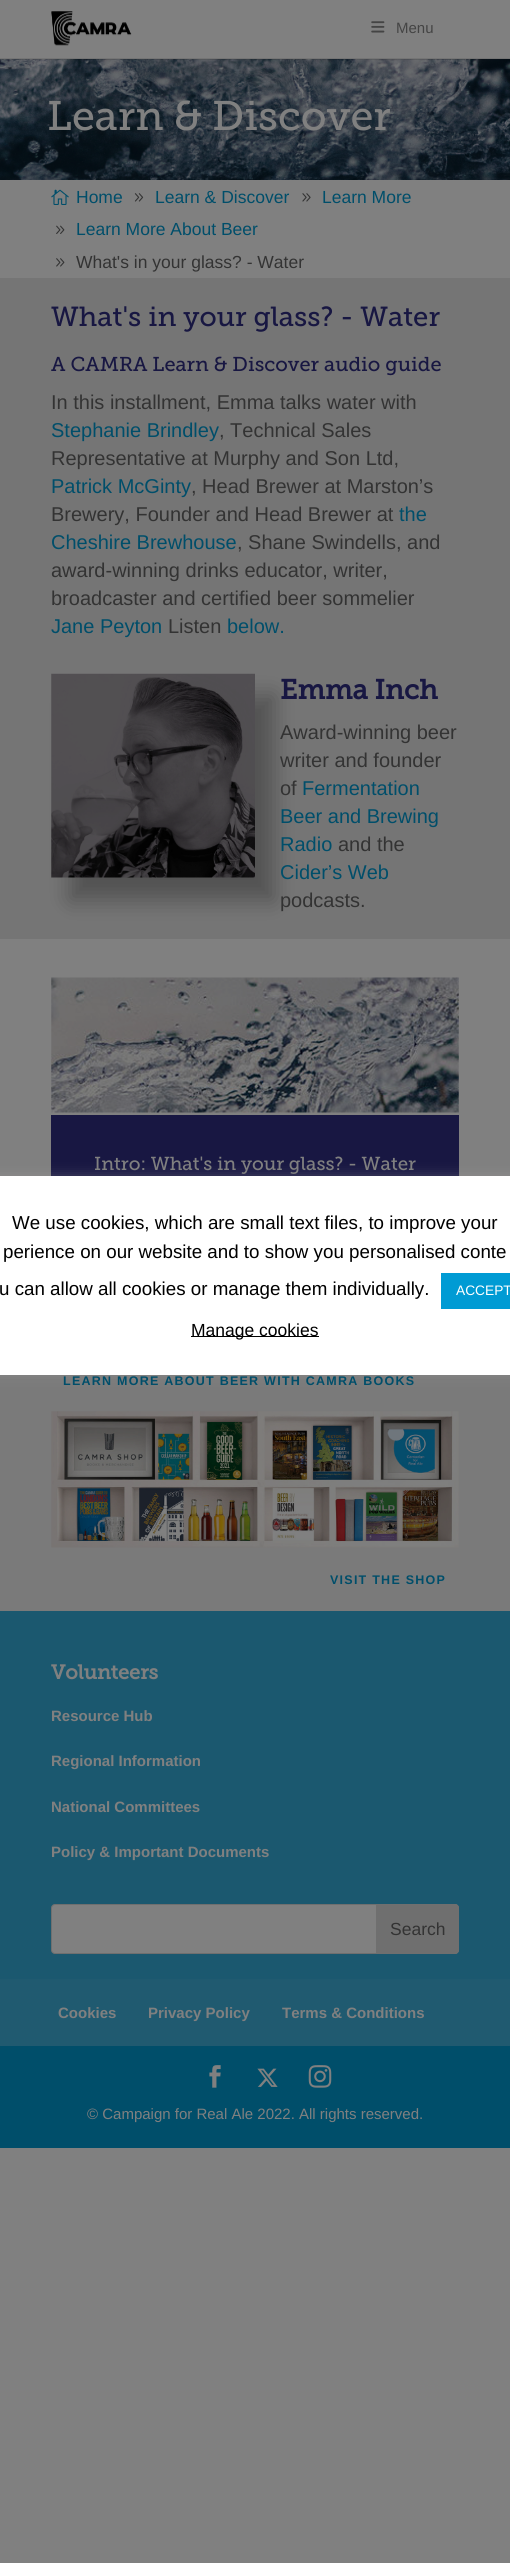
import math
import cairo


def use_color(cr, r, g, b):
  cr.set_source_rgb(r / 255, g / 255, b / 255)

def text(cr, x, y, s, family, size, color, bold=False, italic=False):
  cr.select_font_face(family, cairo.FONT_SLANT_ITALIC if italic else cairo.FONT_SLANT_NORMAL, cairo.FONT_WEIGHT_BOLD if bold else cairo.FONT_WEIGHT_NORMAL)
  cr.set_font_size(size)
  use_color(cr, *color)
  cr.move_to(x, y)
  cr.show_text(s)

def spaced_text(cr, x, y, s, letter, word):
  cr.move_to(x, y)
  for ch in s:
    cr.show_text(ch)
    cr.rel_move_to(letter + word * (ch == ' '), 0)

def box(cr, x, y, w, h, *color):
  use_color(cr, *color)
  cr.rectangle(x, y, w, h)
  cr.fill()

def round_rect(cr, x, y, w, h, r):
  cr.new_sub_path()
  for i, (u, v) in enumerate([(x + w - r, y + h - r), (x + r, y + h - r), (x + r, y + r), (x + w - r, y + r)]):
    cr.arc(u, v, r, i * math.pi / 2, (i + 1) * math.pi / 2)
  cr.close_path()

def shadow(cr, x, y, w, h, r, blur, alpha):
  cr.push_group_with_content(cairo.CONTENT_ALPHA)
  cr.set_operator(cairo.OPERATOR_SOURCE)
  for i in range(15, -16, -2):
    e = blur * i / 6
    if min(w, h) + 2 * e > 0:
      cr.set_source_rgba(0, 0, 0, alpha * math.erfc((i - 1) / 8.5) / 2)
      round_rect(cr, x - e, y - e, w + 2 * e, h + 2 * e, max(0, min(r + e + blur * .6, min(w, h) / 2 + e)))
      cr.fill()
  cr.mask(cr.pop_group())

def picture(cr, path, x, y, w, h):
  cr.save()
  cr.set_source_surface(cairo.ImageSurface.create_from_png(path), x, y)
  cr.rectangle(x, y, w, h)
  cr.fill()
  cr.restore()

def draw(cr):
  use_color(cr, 128, 128, 128)
  cr.paint()
  picture(cr, "img_03.png", 0, 59, 510, 121)
  cr.set_source_rgba(0, 0, 0, 0.1)
  cr.rectangle(0, 59, 483, 1)
  cr.fill()
  box(cr, 0, 58, 510, 1, 116, 116, 116)
  picture(cr, "img_01.png", 51, 11, 81, 35)
  picture(cr, "img_02.png", 371, 21, 14, 12)
  picture(cr, "img_04.png", 51, 189, 18, 16)
  picture(cr, "img_05.png", 134, 193, 10, 9)
  picture(cr, "img_06.png", 302, 193, 9, 9)
  picture(cr, "img_07.png", 56, 225, 9, 9)
  picture(cr, "img_08.png", 56, 258, 9, 9)
  box(cr, 0, 278, 510, 661, 117, 117, 117)
  use_color(cr, 0, 0, 0)
  shadow(cr, 70, 696, 204, 204, 0, 11, 0.3)
  picture(cr, "img_09.png", 51, 673, 204, 205)
  picture(cr, "img_10.png", 51, 977, 408, 136)
  box(cr, 51, 1115, 408, 61, 24, 23, 66)
  box(cr, 0, 1375, 510, 236, 122, 122, 122)
  picture(cr, "img_11.png", 51, 1411, 408, 137)
  box(cr, 0, 1611, 510, 368, 27, 88, 111)
  use_color(cr, 128, 128, 128)
  round_rect(cr, 51.5, 1904.5, 407, 49, 3.5)
  cr.fill_preserve()
  use_color(cr, 111, 111, 111)
  cr.set_line_width(1)
  cr.stroke()
  cr.new_path()
  cr.move_to(376.5, 1904.5)
  cr.line_to(455, 1904.5)
  cr.curve_to(457, 1904.5, 458.5, 1906, 458.5, 1908)
  cr.line_to(458.5, 1950)
  cr.curve_to(458.5, 1952, 457, 1953.5, 455, 1953.5)
  cr.line_to(376.5, 1953.5)
  cr.close_path()
  cr.fill_preserve()
  cr.stroke()
  box(cr, 0, 1979, 510, 67, 32, 90, 112)
  box(cr, 0, 2046, 510, 102, 0, 78, 106)
  picture(cr, "img_12.png", 209, 2065, 12, 23)
  picture(cr, "img_13.png", 257, 2068, 21, 19)
  picture(cr, "img_14.png", 308, 2065, 24, 23)
  use_color(cr, 172, 171, 171)
  shadow(cr, -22, 1175, 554, 199, 4, 6, 0.3)
  box(cr, 0, 1176, 510, 199, 255, 255, 255)
  box(cr, 441, 1273, 69, 36, 0, 155, 212)
  box(cr, 191, 1336, 128, 1, 0, 0, 0)
  text(cr, 396, 33, "Menu", "Liberation Sans", 15, (68, 68, 68))
  text(cr, 47, 130, "Learn & Discover", "Museo Slab", 41.25, (128, 128, 128))
  text(cr, 76, 203, "Home", "Liberation Sans", 17.5, (0, 78, 106))
  text(cr, 155, 203, "Learn & Discover", "Liberation Sans", 17.5, (0, 78, 106))
  text(cr, 322, 203, "Learn More", "Liberation Sans", 17.5, (0, 78, 106))
  text(cr, 76, 235, "Learn More About Beer", "Liberation Sans", 17.5, (0, 78, 106))
  text(cr, 76, 268, "What's in your glass? - Water", "Liberation Sans", 17.5, (51, 51, 51))
  text(cr, 51, 326, "What's in your glass? - Water", "Museo Slab", 27.5, (24, 23, 66))
  text(cr, 51, 371, "A CAMRA Learn & Discover audio guide", "Museo Slab", 20, (24, 23, 66))
  text(cr, 51, 409, "In this installment, Emma talks water with", "Liberation Sans", 20, (51, 51, 51))
  text(cr, 51, 437, "Stephanie Brindley", "Liberation Sans", 20, (0, 78, 106))
  text(cr, 219, 437, ", Technical Sales", "Liberation Sans", 20, (51, 51, 51))
  text(cr, 51, 465, "Representative at Murphy and Son Ltd,", "Liberation Sans", 20, (51, 51, 51))
  text(cr, 51, 493, "Patrick McGinty", "Liberation Sans", 20, (0, 78, 106))
  text(cr, 191, 493, ", Head Brewer at Marston’s", "Liberation Sans", 20, (51, 51, 51))
  text(cr, 51, 521, "Brewery, Founder and Head Brewer at", "Liberation Sans", 20, (51, 51, 51))
  text(cr, 399, 521, "the", "Liberation Sans", 20, (0, 78, 106))
  text(cr, 51, 549, "Cheshire Brewhouse", "Liberation Sans", 20, (0, 78, 106))
  text(cr, 237, 549, ", Shane Swindells, and", "Liberation Sans", 20, (51, 51, 51))
  text(cr, 51, 577, "award-winning drinks educator, writer,", "Liberation Sans", 20, (51, 51, 51))
  text(cr, 51, 605, "broadcaster and certified beer sommelier", "Liberation Sans", 20, (51, 51, 51))
  text(cr, 51, 633, "Jane Peyton", "Liberation Sans", 20, (0, 78, 106))
  text(cr, 168, 633, "Listen", "Liberation Sans", 20, (51, 51, 51))
  text(cr, 227, 633, "below.", "Liberation Sans", 20, (0, 78, 106))
  text(cr, 280, 699, "Emma Inch", "Museo Slab", 27.5, (24, 23, 66), bold=True)
  text(cr, 280, 739, "Award-winning beer", "Liberation Sans", 20, (51, 51, 51))
  text(cr, 280, 767, "writer and founder", "Liberation Sans", 20, (51, 51, 51))
  text(cr, 280, 795, "of", "Liberation Sans", 20, (51, 51, 51))
  text(cr, 302, 795, "Fermentation", "Liberation Sans", 20, (0, 78, 106))
  text(cr, 280, 823, "Beer and Brewing", "Liberation Sans", 20, (0, 78, 106))
  text(cr, 280, 851, "Radio", "Liberation Sans", 20, (0, 78, 106))
  text(cr, 338, 851, "and the", "Liberation Sans", 20, (51, 51, 51))
  text(cr, 280, 879, "Cider’s Web", "Liberation Sans", 20, (0, 78, 106))
  text(cr, 280, 907, "podcasts.", "Liberation Sans", 20, (51, 51, 51))
  text(cr, 94, 1170, "Intro: What's in your glass? - Water", "Museo Slab", 18.75, (128, 128, 128))
  cr.select_font_face("Liberation Sans", cairo.FONT_SLANT_NORMAL, cairo.FONT_WEIGHT_BOLD)
  cr.set_font_size(12.5)
  use_color(cr, 0, 78, 106)
  spaced_text(cr, 63, 1385, "LEARN MORE ABOUT BEER WITH CAMRA BOOKS", 1.25, 0)
  spaced_text(cr, 330, 1584, "VISIT THE SHOP", 1.25, 0)
  text(cr, 51, 1679, "Volunteers", "Museo Slab", 20, (128, 128, 128), bold=True)
  text(cr, 51, 1721, "Resource Hub", "Liberation Sans", 15, (128, 128, 128), bold=True)
  text(cr, 51, 1766, "Regional Information", "Liberation Sans", 15, (128, 128, 128), bold=True)
  text(cr, 51, 1812, "National Committees", "Liberation Sans", 15, (128, 128, 128), bold=True)
  text(cr, 51, 1857, "Policy & Important Documents", "Liberation Sans", 15, (128, 128, 128), bold=True)
  text(cr, 390, 1935, "Search", "Liberation Sans", 17.5, (51, 51, 51))
  text(cr, 58, 2018, "Cookies", "Liberation Sans", 15, (128, 128, 128), bold=True)
  text(cr, 148, 2018, "Privacy Policy", "Liberation Sans", 15, (128, 128, 128), bold=True)
  text(cr, 282, 2018, "Terms & Conditions", "Liberation Sans", 15, (128, 128, 128), bold=True)
  text(cr, 87, 2119, "© Campaign for Real Ale 2022. All rights reserved.", "Liberation Sans", 15, (128, 128, 128))
  text(cr, 12, 1229, "We use cookies, which are small text files, to improve your", "Liberation Sans", 18.75, (0, 0, 0))
  text(cr, 3, 1258, "perience on our website and to show you personalised conte", "Liberation Sans", 18.75, (0, 0, 0))
  text(cr, -1, 1295, "u can allow all cookies or manage them individually.", "Liberation Sans", 18.75, (0, 0, 0))
  text(cr, 456, 1295, "ACCEPT", "Liberation Sans", 13.75, (255, 255, 255))
  text(cr, 191, 1336, "Manage cookies", "Liberation Sans", 17.5, (0, 0, 0))


surface = cairo.ImageSurface(cairo.FORMAT_RGB24, 510, 2563)
cr = cairo.Context(surface)
options = cairo.FontOptions()
options.set_hint_metrics(cairo.HINT_METRICS_OFF)
options.set_hint_style(cairo.HINT_STYLE_NONE)
cr.set_font_options(options)
cr.set_miter_limit(4)
draw(cr)
surface.write_to_png("out.png")
